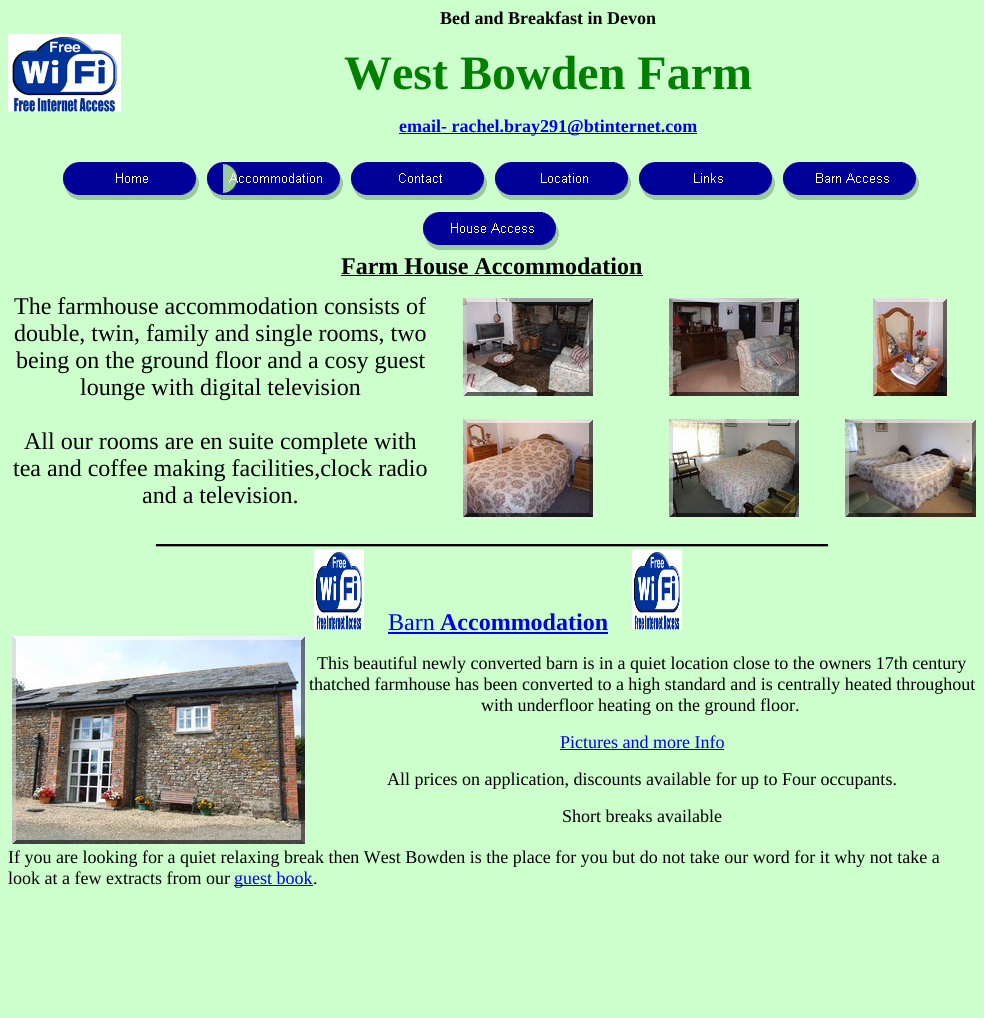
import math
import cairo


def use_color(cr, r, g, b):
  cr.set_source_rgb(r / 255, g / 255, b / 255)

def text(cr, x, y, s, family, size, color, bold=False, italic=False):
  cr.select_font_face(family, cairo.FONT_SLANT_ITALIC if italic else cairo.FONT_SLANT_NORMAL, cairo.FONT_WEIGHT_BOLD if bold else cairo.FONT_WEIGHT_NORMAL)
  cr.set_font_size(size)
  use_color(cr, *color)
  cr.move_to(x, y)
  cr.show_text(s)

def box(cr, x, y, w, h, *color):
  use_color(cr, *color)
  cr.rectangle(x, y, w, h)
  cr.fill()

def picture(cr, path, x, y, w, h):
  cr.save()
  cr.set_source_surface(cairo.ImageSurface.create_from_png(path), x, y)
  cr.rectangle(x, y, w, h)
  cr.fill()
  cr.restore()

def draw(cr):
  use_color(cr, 204, 255, 204)
  cr.paint()
  picture(cr, "img_01.png", 8, 34, 113, 78)
  box(cr, 399, 133, 298, 1, 0, 0, 238)
  picture(cr, "img_02.png", 63, 162, 136, 38)
  picture(cr, "img_03.png", 207, 162, 136, 38)
  picture(cr, "img_04.png", 351, 162, 136, 38)
  picture(cr, "img_05.png", 495, 162, 136, 38)
  picture(cr, "img_06.png", 639, 162, 136, 38)
  picture(cr, "img_07.png", 783, 162, 136, 38)
  picture(cr, "img_08.png", 423, 212, 136, 38)
  box(cr, 341, 275, 302, 1, 0, 0, 0)
  picture(cr, "img_09.png", 463, 298, 130, 98)
  picture(cr, "img_10.png", 669, 298, 130, 98)
  picture(cr, "img_11.png", 873, 298, 74, 98)
  picture(cr, "img_12.png", 463, 419, 130, 98)
  picture(cr, "img_13.png", 669, 419, 130, 98)
  picture(cr, "img_14.png", 845, 419, 131, 98)
  box(cr, 156, 544, 672, 1, 0, 0, 0)
  picture(cr, "img_15.png", 314, 549, 50, 81)
  box(cr, 388, 632, 220, 2, 0, 0, 238)
  picture(cr, "img_15.png", 632, 549, 50, 81)
  picture(cr, "img_16.png", 12, 636, 293, 208)
  box(cr, 560, 749, 164, 1, 0, 0, 238)
  box(cr, 234, 885, 79, 1, 0, 0, 238)
  text(cr, 440, 24, "Bed and Breakfast in Devon", "Liberation Serif", 18, (0, 0, 0), bold=True)
  text(cr, 344, 89, "West Bowden Farm", "Liberation Serif", 48, (0, 128, 0), bold=True)
  text(cr, 399, 132, "email- rachel.bray291@btinternet.com", "Liberation Serif", 18, (0, 0, 238), bold=True)
  text(cr, 341, 274, "Farm House Accommodation", "Liberation Serif", 24, (0, 0, 0), bold=True)
  text(cr, 14, 314, "The farmhouse accommodation consists of", "Liberation Serif", 24, (0, 0, 0))
  text(cr, 14, 341, "double, twin, family and single rooms, two", "Liberation Serif", 24, (0, 0, 0))
  text(cr, 16, 368, "being on the ground floor and a cosy guest", "Liberation Serif", 24, (0, 0, 0))
  text(cr, 80, 395, "lounge with digital television", "Liberation Serif", 24, (0, 0, 0))
  text(cr, 24, 449, "All our rooms are en suite complete with", "Liberation Serif", 24, (0, 0, 0))
  text(cr, 13, 476, "tea and coffee making facilities,clock radio", "Liberation Serif", 24, (0, 0, 0))
  text(cr, 142, 503, "and a television.", "Liberation Serif", 24, (0, 0, 0))
  text(cr, 156, 543, "________________________________________________________", "Liberation Serif", 24, (0, 0, 0), bold=True)
  text(cr, 388, 630, "Barn", "Liberation Serif", 24, (0, 0, 238))
  text(cr, 440, 630, "Accommodation", "Liberation Serif", 24, (0, 0, 238), bold=True)
  text(cr, 317, 669, "This beautiful newly converted barn is in a quiet location close to the owners 17th century", "Liberation Serif", 18, (0, 0, 0))
  text(cr, 309, 690, "thatched farmhouse has been converted to a high standard and is centrally heated throughout", "Liberation Serif", 18, (0, 0, 0))
  text(cr, 481, 711, "with underfloor heating on the ground floor.", "Liberation Serif", 18, (0, 0, 0))
  text(cr, 560, 748, "Pictures and more Info", "Liberation Serif", 18, (0, 0, 238))
  text(cr, 387, 785, "All prices on application, discounts available for up to Four occupants.", "Liberation Serif", 18, (0, 0, 0))
  text(cr, 562, 822, "Short breaks available", "Liberation Serif", 18, (0, 0, 0))
  text(cr, 8, 863, "If you are looking for a quiet relaxing break then West Bowden is the place for you but do not take our word for it why not take a", "Liberation Serif", 18, (0, 0, 0))
  text(cr, 8, 884, "look at a few extracts from our", "Liberation Serif", 18, (0, 0, 0))
  text(cr, 234, 884, "guest book", "Liberation Serif", 18, (0, 0, 238))
  text(cr, 313, 884, ".", "Liberation Serif", 18, (0, 0, 0))


surface = cairo.ImageSurface(cairo.FORMAT_RGB24, 984, 1018)
cr = cairo.Context(surface)
options = cairo.FontOptions()
options.set_hint_metrics(cairo.HINT_METRICS_OFF)
options.set_hint_style(cairo.HINT_STYLE_NONE)
cr.set_font_options(options)
cr.set_miter_limit(4)
draw(cr)
surface.write_to_png("out.png")
